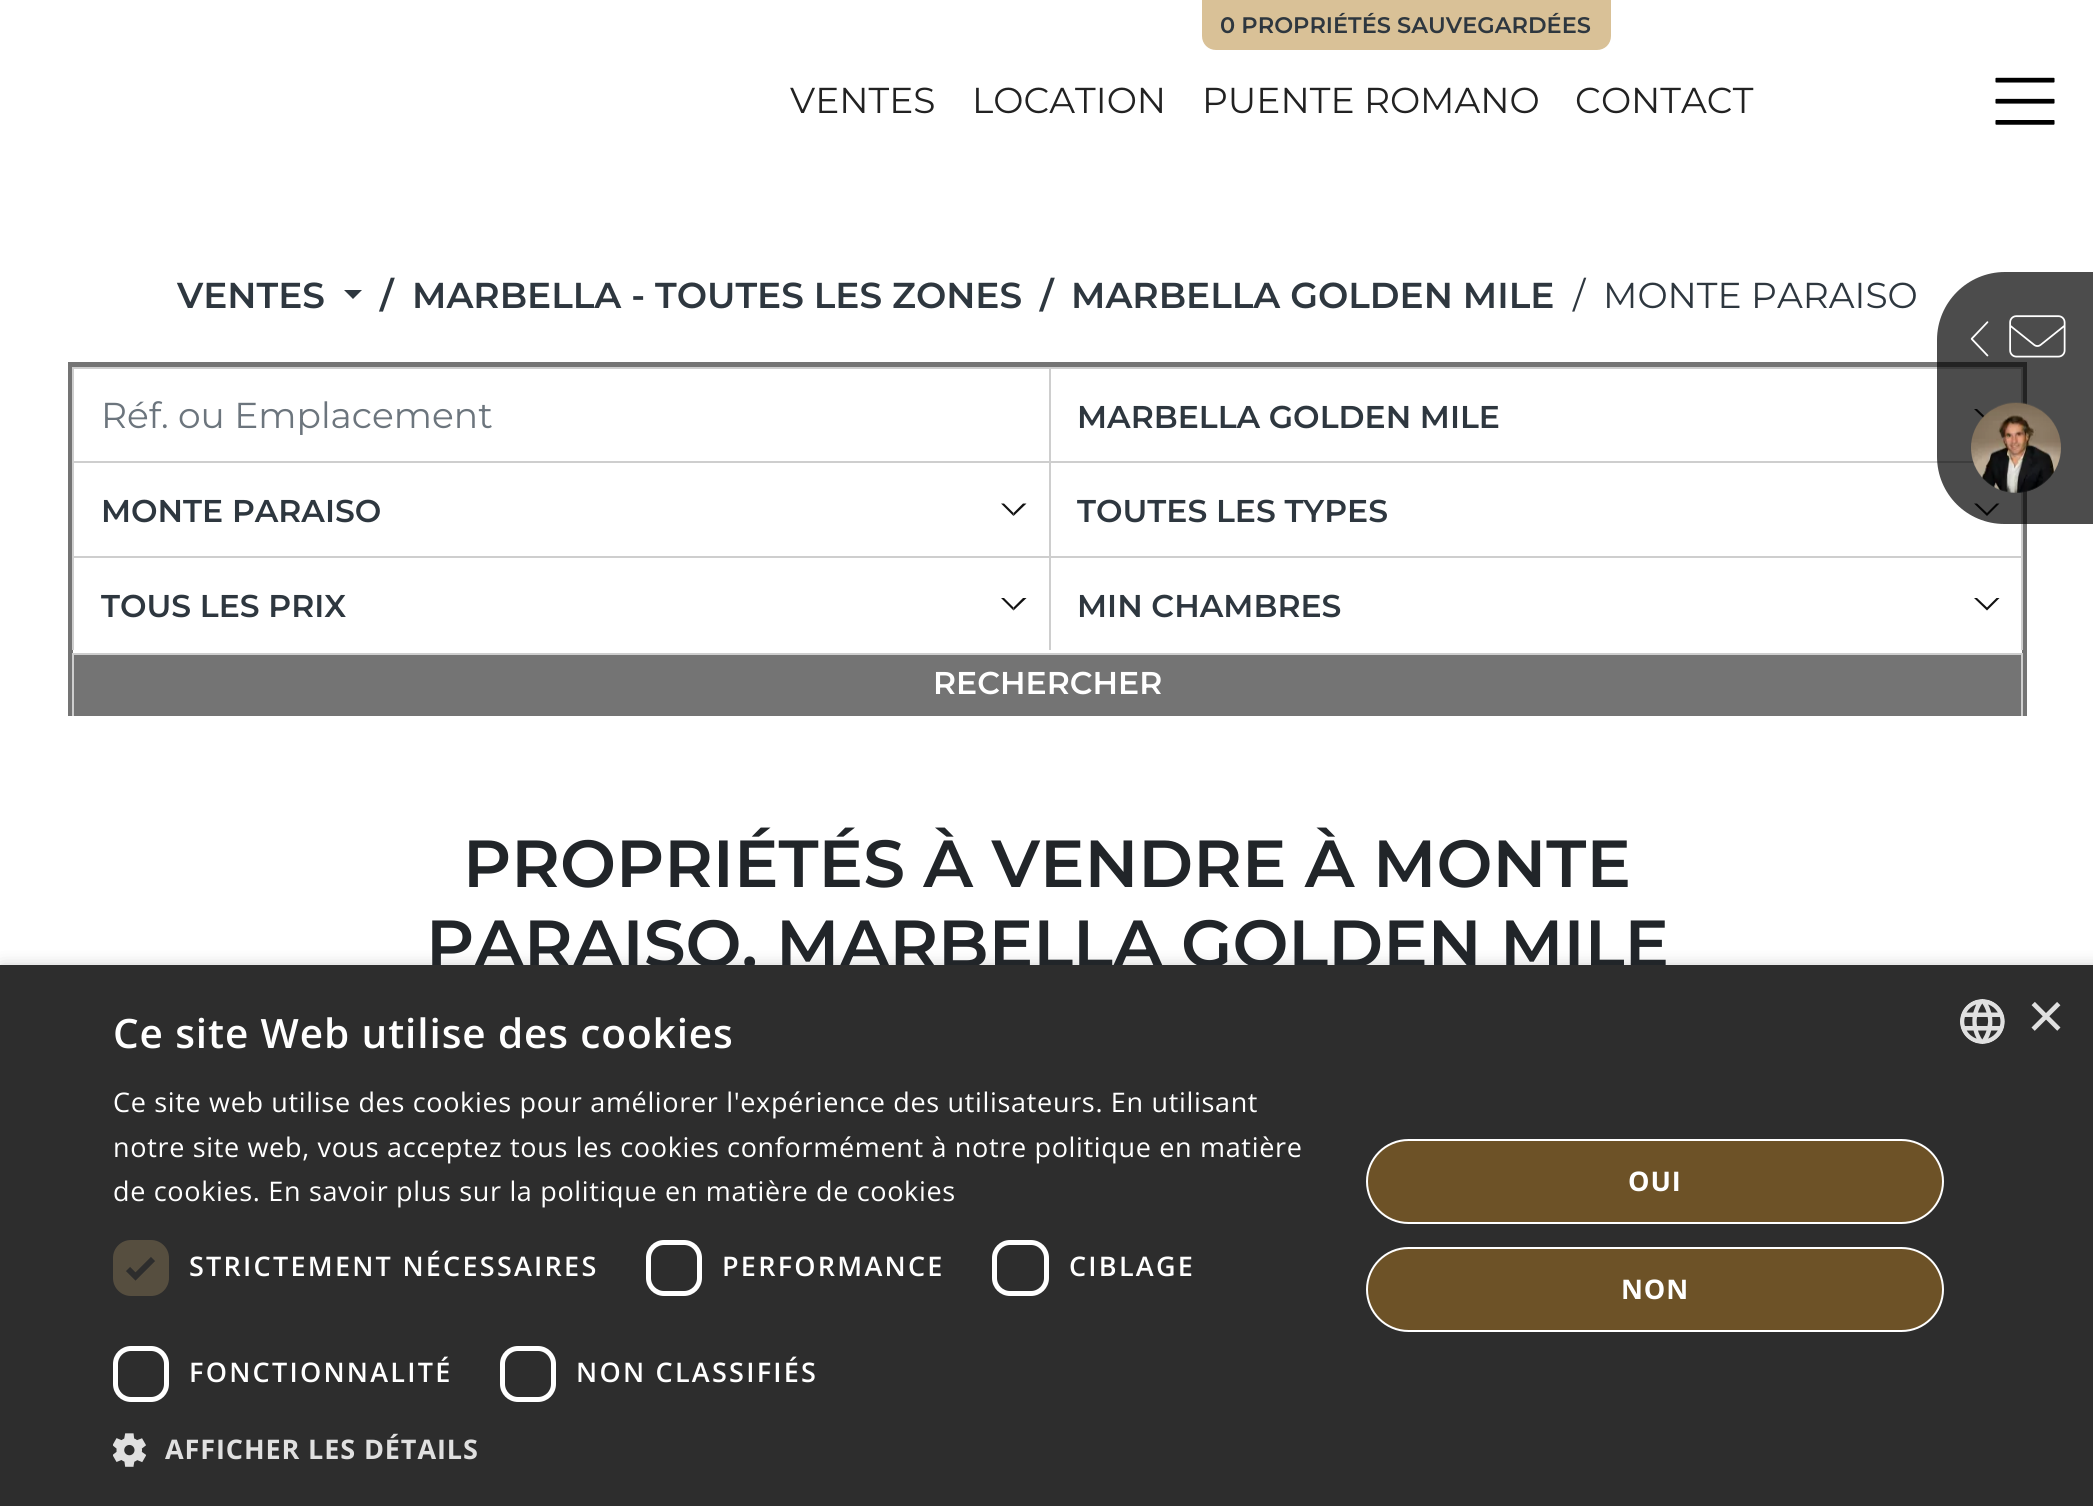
import math
import cairo


def use_color(cr, r, g, b):
  cr.set_source_rgb(r / 255, g / 255, b / 255)

def text(cr, x, y, s, family, size, color, bold=False, italic=False):
  cr.select_font_face(family, cairo.FONT_SLANT_ITALIC if italic else cairo.FONT_SLANT_NORMAL, cairo.FONT_WEIGHT_BOLD if bold else cairo.FONT_WEIGHT_NORMAL)
  cr.set_font_size(size)
  use_color(cr, *color)
  cr.move_to(x, y)
  cr.show_text(s)

def spaced_text(cr, x, y, s, letter, word):
  cr.move_to(x, y)
  for ch in s:
    cr.show_text(ch)
    cr.rel_move_to(letter + word * (ch == ' '), 0)

def box(cr, x, y, w, h, *color):
  use_color(cr, *color)
  cr.rectangle(x, y, w, h)
  cr.fill()

def round_rect(cr, x, y, w, h, r):
  cr.new_sub_path()
  for i, (u, v) in enumerate([(x + w - r, y + h - r), (x + r, y + h - r), (x + r, y + r), (x + w - r, y + r)]):
    cr.arc(u, v, r, i * math.pi / 2, (i + 1) * math.pi / 2)
  cr.close_path()

def shadow(cr, x, y, w, h, r, blur, alpha):
  cr.push_group_with_content(cairo.CONTENT_ALPHA)
  cr.set_operator(cairo.OPERATOR_SOURCE)
  for i in range(15, -16, -2):
    e = blur * i / 6
    if min(w, h) + 2 * e > 0:
      cr.set_source_rgba(0, 0, 0, alpha * math.erfc((i - 1) / 8.5) / 2)
      round_rect(cr, x - e, y - e, w + 2 * e, h + 2 * e, max(0, min(r + e + blur * .6, min(w, h) / 2 + e)))
      cr.fill()
  cr.mask(cr.pop_group())

def picture(cr, path, x, y, w, h):
  cr.save()
  cr.set_source_surface(cairo.ImageSurface.create_from_png(path), x, y)
  cr.rectangle(x, y, w, h)
  cr.fill()
  cr.restore()

def draw(cr):
  use_color(cr, 255, 255, 255)
  cr.paint()
  use_color(cr, 217, 193, 151)
  cr.new_path()
  cr.move_to(1204.5, 2.5)
  cr.line_to(1608.5, 2.5)
  cr.line_to(1608.5, 36)
  cr.curve_to(1608.5, 42.5, 1603.5, 47.5, 1597, 47.5)
  cr.line_to(1216, 47.5)
  cr.curve_to(1209.5, 47.5, 1204.5, 42.5, 1204.5, 36)
  cr.close_path()
  cr.fill_preserve()
  cr.set_line_width(5)
  cr.stroke()
  picture(cr, "img_01.png", 1995, 77, 60, 48)
  use_color(cr, 46, 55, 63)
  cr.new_path()
  cr.move_to(344, 290)
  cr.line_to(362, 290)
  cr.line_to(353, 299)
  cr.close_path()
  cr.fill()
  cr.rectangle(70.5, 364.5, 1954, 349)
  use_color(cr, 116, 116, 116)
  cr.stroke()
  box(cr, 72, 367, 1951, 2, 206, 206, 206)
  box(cr, 72, 367, 2, 94, 206, 206, 206)
  box(cr, 2021, 367, 2, 37, 206, 206, 206)
  box(cr, 1049, 367, 2, 94, 206, 206, 206)
  use_color(cr, 17, 17, 17)
  cr.new_path()
  cr.move_to(1987, 421.5)
  cr.line_to(1974, 409)
  cr.line_to(1977, 409)
  cr.line_to(1987, 418.5)
  cr.close_path()
  cr.fill()
  box(cr, 72, 461, 1902, 2, 206, 206, 206)
  box(cr, 72, 461, 2, 95, 206, 206, 206)
  use_color(cr, 17, 17, 17)
  cr.new_path()
  cr.move_to(1026.5, 503.5)
  cr.line_to(1013.5, 516)
  cr.line_to(1013.5, 513)
  cr.line_to(1023, 503.5)
  cr.close_path()
  cr.fill()
  cr.new_path()
  cr.move_to(1013.5, 516)
  cr.line_to(1001, 503.5)
  cr.line_to(1004, 503.5)
  cr.line_to(1013.5, 513)
  cr.close_path()
  cr.fill()
  box(cr, 2021, 491, 2, 65, 206, 206, 206)
  box(cr, 1049, 461, 2, 95, 206, 206, 206)
  use_color(cr, 17, 17, 17)
  cr.new_path()
  cr.move_to(1999.5, 503.5)
  cr.line_to(1987, 516)
  cr.line_to(1987, 513)
  cr.line_to(1996.5, 503.5)
  cr.close_path()
  cr.move_to(1987, 516)
  cr.line_to(1974, 503.5)
  cr.line_to(1977, 503.5)
  cr.line_to(1987, 513)
  cr.close_path()
  cr.fill()
  box(cr, 72, 556, 1951, 2, 206, 206, 206)
  box(cr, 72, 556, 2, 94, 206, 206, 206)
  use_color(cr, 17, 17, 17)
  cr.new_path()
  cr.move_to(1026.5, 598)
  cr.line_to(1013.5, 610.5)
  cr.line_to(1013.5, 607.5)
  cr.line_to(1023, 598)
  cr.close_path()
  cr.fill()
  cr.new_path()
  cr.move_to(1013.5, 610.5)
  cr.line_to(1001, 598)
  cr.line_to(1004, 598)
  cr.line_to(1013.5, 607.5)
  cr.close_path()
  cr.fill()
  box(cr, 2021, 556, 2, 94, 206, 206, 206)
  box(cr, 1049, 556, 2, 94, 206, 206, 206)
  use_color(cr, 17, 17, 17)
  cr.new_path()
  cr.move_to(1999.5, 598)
  cr.line_to(1987, 610.5)
  cr.line_to(1987, 607.5)
  cr.line_to(1996.5, 598)
  cr.close_path()
  cr.move_to(1987, 610.5)
  cr.line_to(1974, 598)
  cr.line_to(1977, 598)
  cr.line_to(1987, 607.5)
  cr.close_path()
  cr.fill()
  box(cr, 74, 655, 1947, 56, 116, 116, 116)
  box(cr, 72, 653, 1951, 2, 206, 206, 206)
  box(cr, 2021, 653, 2, 63, 206, 206, 206)
  box(cr, 72, 653, 2, 63, 206, 206, 206)
  cr.set_source_rgba(0, 0, 0, 0.7)
  cr.new_path()
  cr.move_to(2005, 272)
  cr.line_to(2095, 272)
  cr.line_to(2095, 389)
  cr.line_to(1937, 389)
  cr.line_to(1937, 340)
  cr.curve_to(1937, 302.5, 1967.5, 272, 2005, 272)
  cr.close_path()
  cr.fill()
  picture(cr, "img_02.png", 2009, 315, 57, 43)
  picture(cr, "img_03.png", 1970, 321, 19, 36)
  cr.new_path()
  cr.move_to(1937, 389)
  cr.line_to(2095, 389)
  cr.line_to(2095, 524)
  cr.line_to(2004.5, 524)
  cr.curve_to(1967, 524, 1937, 494, 1937, 456.5)
  cr.close_path()
  cr.fill()
  picture(cr, "img_04.png", 1971, 402, 90, 91)
  use_color(cr, 0, 0, 0)
  shadow(cr, 2, 970, 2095, 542, 0, 9, 0.35)
  text(cr, 1220, 33, "0 PROPRIÉTÉS SAUVEGARDÉES", "Montserrat Thin", 22.5, (46, 55, 63))
  text(cr, 790, 113, "VENTES", "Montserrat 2 Thin", 36, (34, 34, 34))
  text(cr, 972, 113, "LOCATION", "Montserrat 2 Thin", 36, (34, 34, 34))
  text(cr, 1202, 113, "PUENTE ROMANO", "Montserrat 2 Thin", 36, (34, 34, 34))
  text(cr, 1575, 113, "CONTACT", "Montserrat 2 Thin", 36, (34, 34, 34))
  text(cr, 177, 308, "VENTES", "Montserrat Thin", 36, (46, 55, 63))
  text(cr, 380, 308, "/", "Montserrat Thin", 36, (46, 55, 63))
  text(cr, 412, 308, "MARBELLA - TOUTES LES ZONES", "Montserrat Thin", 36, (46, 55, 63))
  text(cr, 1040, 308, "/", "Montserrat Thin", 36, (46, 55, 63))
  text(cr, 1071, 308, "MARBELLA GOLDEN MILE", "Montserrat Thin", 36, (46, 55, 63))
  text(cr, 1573, 308, "/", "Montserrat 2 Thin", 36, (46, 55, 63))
  text(cr, 1603, 308, "MONTE PARAISO", "Montserrat 2 Thin", 36, (46, 55, 63))
  text(cr, 101, 428, "Réf. ou Emplacement", "Montserrat 2 Thin", 36, (108, 117, 125))
  text(cr, 1077, 428, "MARBELLA GOLDEN MILE", "Montserrat Thin", 31.5, (46, 55, 63))
  text(cr, 101, 522, "MONTE PARAISO", "Montserrat Thin", 31.5, (46, 55, 63))
  text(cr, 1077, 522, "TOUTES LES TYPES", "Montserrat Thin", 31.5, (46, 55, 63))
  text(cr, 101, 617, "TOUS LES PRIX", "Montserrat Thin", 31.5, (46, 55, 63))
  text(cr, 1077, 617, "MIN CHAMBRES", "Montserrat Thin", 31.5, (46, 55, 63))
  text(cr, 933, 694, "RECHERCHER", "Montserrat Thin", 31.5, (255, 255, 255))
  text(cr, 463, 887, "PROPRIÉTÉS À VENDRE À MONTE", "Montserrat Thin", 66.5, (33, 37, 41))
  text(cr, 426, 967, "PARAISO, MARBELLA GOLDEN MILE", "Montserrat Thin", 66.5, (33, 37, 41))
  box(cr, 0, 965, 2093, 541, 45, 45, 45)
  cr.select_font_face("Open Sans SemiBold")
  cr.set_font_size(40.5)
  use_color(cr, 255, 255, 255)
  spaced_text(cr, 113, 1048, "Ce site Web utilise des cookies", 0.9, 0)
  cr.select_font_face("Open Sans")
  cr.set_font_size(27)
  spaced_text(cr, 113, 1112, "Ce site web utilise des cookies pour améliorer l'expérience des utilisateurs. En utilisant", 0.67, 0)
  spaced_text(cr, 113, 1157, "notre site web, vous acceptez tous les cookies conformément à notre politique en matière", 0.67, 0)
  spaced_text(cr, 113, 1201, "de cookies. En savoir plus sur la politique en matière de cookies", 0.67, 0)
  use_color(cr, 86, 78, 63)
  round_rect(cr, 113, 1240, 56, 56, 18)
  cr.fill()
  cr.new_path()
  cr.move_to(128, 1269)
  cr.line_to(135.5, 1276.5)
  cr.line_to(153, 1259)
  use_color(cr, 45, 45, 45)
  cr.set_line_width(5.9)
  cr.stroke()
  cr.select_font_face("Open Sans SemiBold")
  use_color(cr, 255, 255, 255)
  spaced_text(cr, 189, 1276, "STRICTEMENT NÉCESSAIRES", 2.25, 0)
  round_rect(cr, 648.5, 1242.5, 51, 51, 15.5)
  cr.set_line_width(5)
  cr.stroke()
  spaced_text(cr, 722, 1276, "PERFORMANCE", 2.25, 0)
  round_rect(cr, 994.5, 1242.5, 52, 51, 15.5)
  cr.stroke()
  spaced_text(cr, 1069, 1276, "CIBLAGE", 2.25, 0)
  round_rect(cr, 115.5, 1348.5, 51, 51, 15.5)
  cr.stroke()
  spaced_text(cr, 189, 1382, "FONCTIONNALITÉ", 2.25, 0)
  round_rect(cr, 502.5, 1348.5, 51, 51, 15.5)
  cr.stroke()
  spaced_text(cr, 576, 1382, "NON CLASSIFIÉS", 2.25, 0)
  picture(cr, "img_05.png", 113, 1433, 33, 34)
  cr.select_font_face("Open Sans", cairo.FONT_SLANT_NORMAL, cairo.FONT_WEIGHT_BOLD)
  use_color(cr, 224, 224, 224)
  spaced_text(cr, 165, 1459, "AFFICHER LES DÉTAILS", 0.9, 0)
  use_color(cr, 109, 82, 39)
  round_rect(cr, 1367, 1140, 576, 83, 41.5)
  cr.fill_preserve()
  use_color(cr, 255, 255, 255)
  cr.set_line_width(2)
  cr.stroke()
  spaced_text(cr, 1628, 1191, "OUI", 0.9, 0)
  use_color(cr, 109, 82, 39)
  round_rect(cr, 1367, 1248, 576, 83, 41.5)
  cr.fill_preserve()
  use_color(cr, 255, 255, 255)
  cr.stroke()
  spaced_text(cr, 1621, 1299, "NON", 0.9, 0)
  picture(cr, "img_06.png", 1960, 999, 45, 45)
  text(cr, 2027, 1038, "×", "Liberation Sans", 65, (224, 224, 224))


surface = cairo.ImageSurface(cairo.FORMAT_RGB24, 2093, 1506)
cr = cairo.Context(surface)
options = cairo.FontOptions()
options.set_hint_metrics(cairo.HINT_METRICS_OFF)
options.set_hint_style(cairo.HINT_STYLE_NONE)
cr.set_font_options(options)
cr.set_miter_limit(4)
draw(cr)
surface.write_to_png("out.png")
